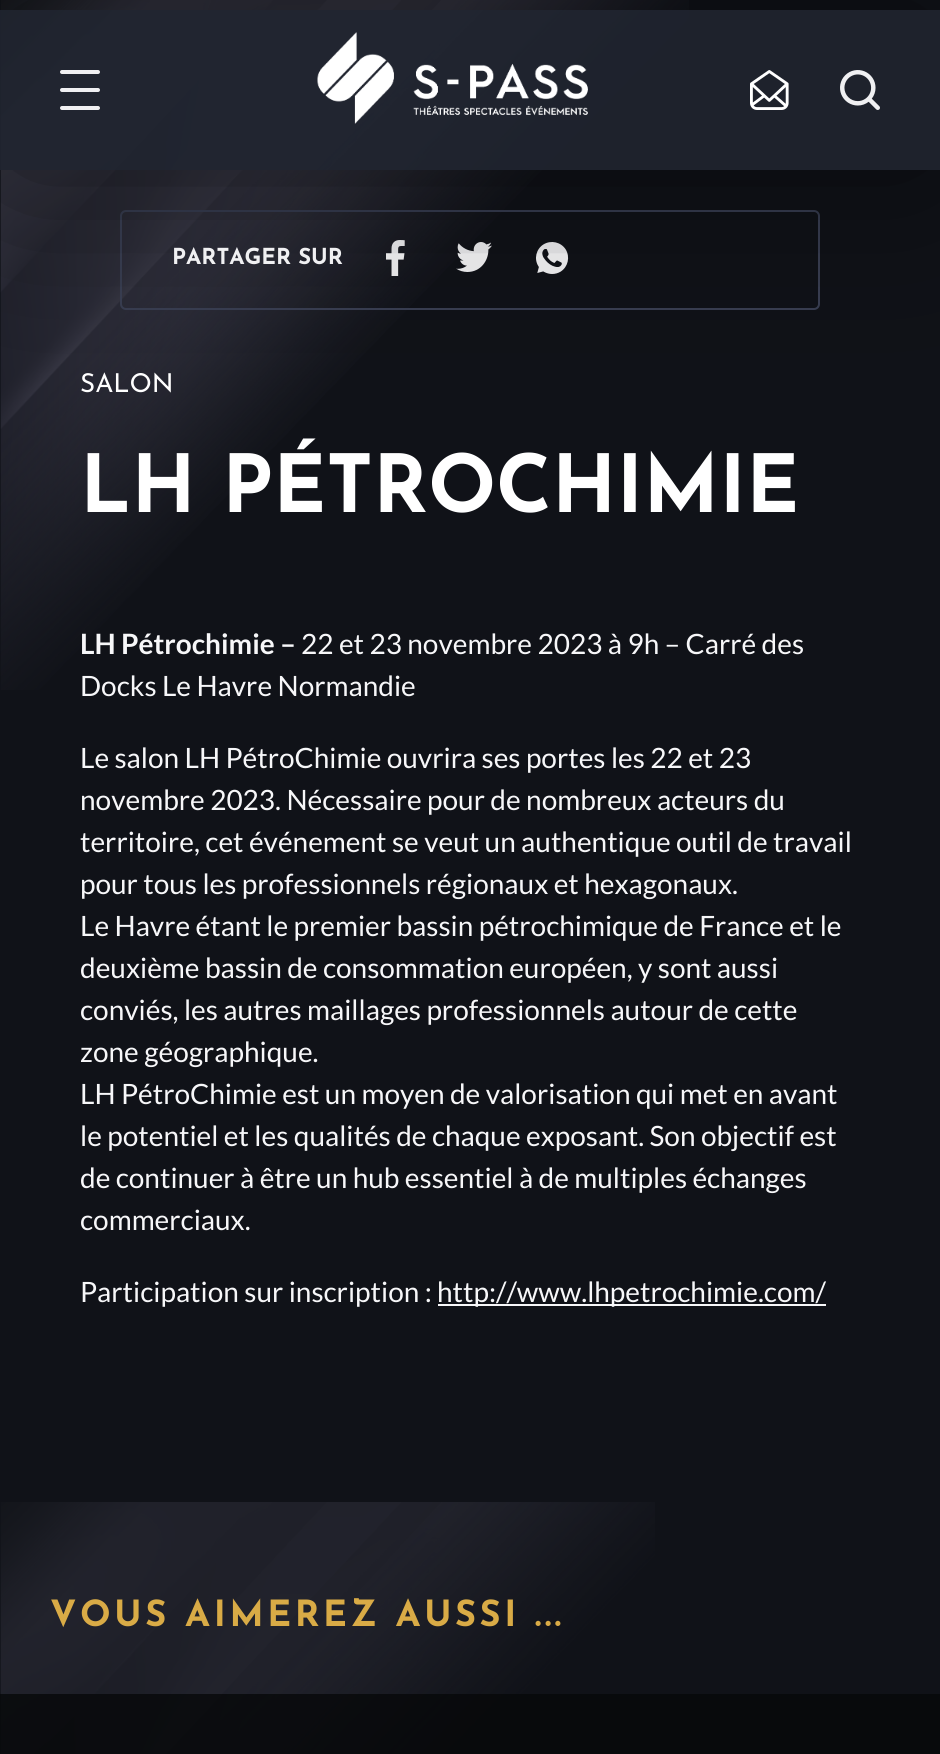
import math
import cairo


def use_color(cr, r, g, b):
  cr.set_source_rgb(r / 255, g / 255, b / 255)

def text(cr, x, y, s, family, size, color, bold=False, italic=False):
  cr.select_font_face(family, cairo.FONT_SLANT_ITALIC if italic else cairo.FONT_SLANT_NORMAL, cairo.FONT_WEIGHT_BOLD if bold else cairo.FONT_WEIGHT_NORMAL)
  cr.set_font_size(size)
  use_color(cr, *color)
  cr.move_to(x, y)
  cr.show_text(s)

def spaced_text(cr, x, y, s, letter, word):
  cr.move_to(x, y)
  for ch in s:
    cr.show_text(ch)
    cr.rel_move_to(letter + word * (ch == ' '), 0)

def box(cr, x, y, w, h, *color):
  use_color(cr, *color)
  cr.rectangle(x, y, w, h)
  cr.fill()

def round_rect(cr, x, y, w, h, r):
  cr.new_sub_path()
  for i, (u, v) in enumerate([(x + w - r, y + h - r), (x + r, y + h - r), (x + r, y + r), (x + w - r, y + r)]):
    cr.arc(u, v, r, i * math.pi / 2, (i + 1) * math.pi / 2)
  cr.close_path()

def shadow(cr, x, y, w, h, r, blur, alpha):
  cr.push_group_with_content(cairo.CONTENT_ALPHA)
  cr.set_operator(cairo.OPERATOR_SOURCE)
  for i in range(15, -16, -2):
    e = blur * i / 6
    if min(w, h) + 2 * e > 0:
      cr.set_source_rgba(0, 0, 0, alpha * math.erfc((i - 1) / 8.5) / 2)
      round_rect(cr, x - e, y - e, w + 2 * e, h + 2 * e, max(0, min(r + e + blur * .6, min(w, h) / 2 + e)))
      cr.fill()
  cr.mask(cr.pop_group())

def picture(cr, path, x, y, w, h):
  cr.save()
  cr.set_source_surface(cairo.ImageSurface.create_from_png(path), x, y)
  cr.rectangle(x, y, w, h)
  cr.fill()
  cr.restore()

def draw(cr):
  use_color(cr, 16, 18, 24)
  cr.paint()
  picture(cr, "img_04.png", 0, 0, 689, 690)
  round_rect(cr, 121, 211, 698, 98, 5)
  use_color(cr, 57, 63, 83)
  cr.stroke()
  picture(cr, "img_05.png", 386, 240, 19, 36)
  picture(cr, "img_06.png", 456, 242, 36, 30)
  picture(cr, "img_07.png", 536, 242, 33, 32)
  cr.save()
  cr.set_fill_rule(cairo.FILL_RULE_EVEN_ODD)
  cr.new_path()
  cr.move_to(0, 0)
  cr.line_to(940, 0)
  cr.line_to(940, 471)
  cr.line_to(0, 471)
  cr.close_path()
  cr.move_to(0, 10)
  cr.line_to(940, 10)
  cr.line_to(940, 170)
  cr.line_to(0, 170)
  cr.close_path()
  cr.clip()
  use_color(cr, 0, 0, 0)
  shadow(cr, 0, 10, 940, 160, 0, 100, 0.5)
  cr.restore()
  cr.set_source_rgba(0.125, 0.141, 0.184, 0.9)
  cr.rectangle(0, 10, 940, 160)
  cr.fill()
  use_color(cr, 240, 240, 242)
  round_rect(cr, 60, 70, 40, 4, 2)
  cr.fill()
  round_rect(cr, 60, 88, 40, 4, 2)
  cr.fill()
  round_rect(cr, 60, 106, 40, 4, 2)
  cr.fill()
  picture(cr, "img_01.png", 317, 32, 271, 92)
  picture(cr, "img_02.png", 750, 70, 39, 40)
  picture(cr, "img_03.png", 840, 70, 40, 40)
  box(cr, 438, 1304, 388, 2, 247, 247, 249)
  picture(cr, "img_08.png", 0, 1502, 655, 252)
  cr.set_source_rgba(0.027, 0.031, 0.039, 0.8)
  cr.rectangle(0, 1694, 940, 60)
  cr.fill()
  text(cr, 172, 264, "PARTAGER SUR", "Josefin Sans", 22, (240, 240, 242), bold=True)
  text(cr, 80, 392, "SALON", "Josefin Sans", 26, (255, 255, 255))
  text(cr, 80, 512, "LH PÉTROCHIMIE", "Josefin Sans", 80, (255, 255, 255), bold=True)
  text(cr, 80, 654, "LH Pétrochimie –", "Lato", 28, (247, 247, 249), bold=True)
  text(cr, 301, 654, "22 et 23 novembre 2023 à 9h – Carré des", "Lato", 28, (247, 247, 249))
  text(cr, 80, 696, "Docks Le Havre Normandie", "Lato", 28, (247, 247, 249))
  text(cr, 80, 768, "Le salon LH PétroChimie ouvrira ses portes les 22 et 23", "Lato", 28, (247, 247, 249))
  text(cr, 80, 810, "novembre 2023. Nécessaire pour de nombreux acteurs du", "Lato", 28, (247, 247, 249))
  text(cr, 80, 852, "territoire, cet événement se veut un authentique outil de travail", "Lato", 28, (247, 247, 249))
  text(cr, 80, 894, "pour tous les professionnels régionaux et hexagonaux.", "Lato", 28, (247, 247, 249))
  text(cr, 80, 936, "Le Havre étant le premier bassin pétrochimique de France et le", "Lato", 28, (247, 247, 249))
  text(cr, 80, 978, "deuxième bassin de consommation européen, y sont aussi", "Lato", 28, (247, 247, 249))
  text(cr, 80, 1020, "conviés, les autres maillages professionnels autour de cette", "Lato", 28, (247, 247, 249))
  text(cr, 80, 1062, "zone géographique.", "Lato", 28, (247, 247, 249))
  text(cr, 80, 1104, "LH PétroChimie est un moyen de valorisation qui met en avant", "Lato", 28, (247, 247, 249))
  text(cr, 80, 1146, "le potentiel et les qualités de chaque exposant. Son objectif est", "Lato", 28, (247, 247, 249))
  text(cr, 80, 1188, "de continuer à être un hub essentiel à de multiples échanges", "Lato", 28, (247, 247, 249))
  text(cr, 80, 1230, "commerciaux.", "Lato", 28, (247, 247, 249))
  text(cr, 80, 1302, "Participation sur inscription :", "Lato", 28, (247, 247, 249))
  text(cr, 437, 1302, "http://www.lhpetrochimie.com/", "Lato", 28, (247, 247, 249))
  cr.select_font_face("Josefin Sans", cairo.FONT_SLANT_NORMAL, cairo.FONT_WEIGHT_BOLD)
  cr.set_font_size(36)
  use_color(cr, 217, 171, 70)
  spaced_text(cr, 50, 1626, "VOUS AIMEREZ AUSSI ...", 3.6, 0)


surface = cairo.ImageSurface(cairo.FORMAT_RGB24, 940, 1754)
cr = cairo.Context(surface)
options = cairo.FontOptions()
options.set_hint_metrics(cairo.HINT_METRICS_OFF)
options.set_hint_style(cairo.HINT_STYLE_NONE)
cr.set_font_options(options)
cr.set_miter_limit(4)
draw(cr)
surface.write_to_png("out.png")
